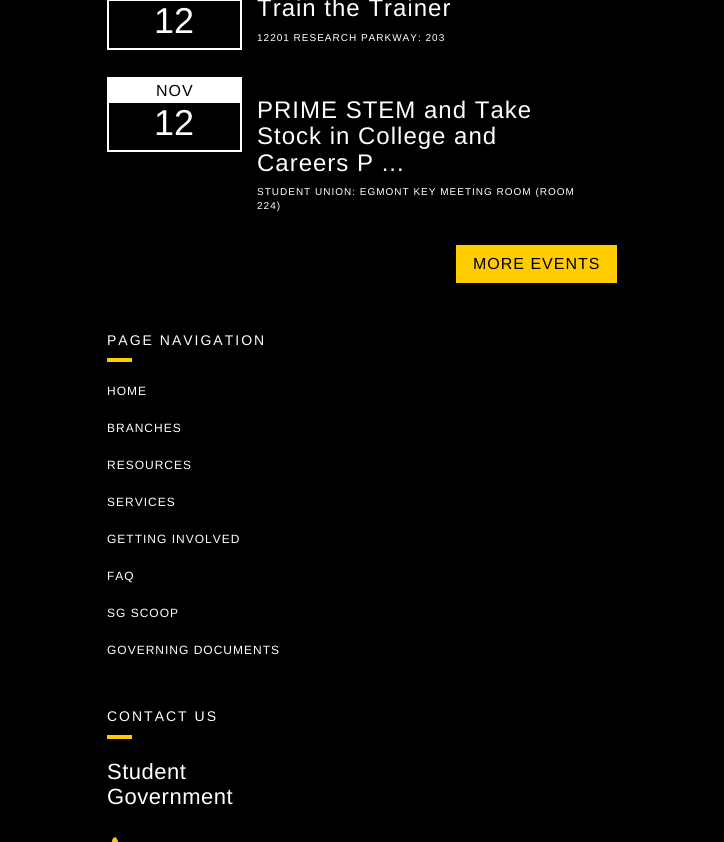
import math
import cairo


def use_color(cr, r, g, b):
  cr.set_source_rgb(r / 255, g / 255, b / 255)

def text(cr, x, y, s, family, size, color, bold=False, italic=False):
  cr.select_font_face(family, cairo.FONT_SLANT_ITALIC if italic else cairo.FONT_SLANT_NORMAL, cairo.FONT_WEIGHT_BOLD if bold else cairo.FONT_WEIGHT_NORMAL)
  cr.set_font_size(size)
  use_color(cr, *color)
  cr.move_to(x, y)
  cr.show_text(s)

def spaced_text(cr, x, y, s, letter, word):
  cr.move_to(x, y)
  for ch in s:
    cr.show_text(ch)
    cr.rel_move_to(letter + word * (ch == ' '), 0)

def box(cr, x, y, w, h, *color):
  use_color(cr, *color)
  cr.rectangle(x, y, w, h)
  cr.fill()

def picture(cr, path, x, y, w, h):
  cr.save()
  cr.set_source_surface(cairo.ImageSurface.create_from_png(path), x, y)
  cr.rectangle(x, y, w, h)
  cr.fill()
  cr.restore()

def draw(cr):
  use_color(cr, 0, 0, 0)
  cr.paint()
  cr.rectangle(108, -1, 133, 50)
  use_color(cr, 255, 255, 255)
  cr.stroke()
  box(cr, 109, 0, 131, 1, 255, 255, 255)
  cr.rectangle(108, 78, 133, 73)
  cr.stroke()
  box(cr, 109, 79, 131, 24, 255, 255, 255)
  box(cr, 456, 245, 161, 38, 255, 204, 0)
  box(cr, 107, 358, 25, 4, 255, 204, 0)
  box(cr, 107, 735, 25, 4, 255, 204, 0)
  picture(cr, "img_01.png", 112, 837, 7, 5)
  text(cr, 154, 33, "12", "Liberation Sans", 36, (255, 255, 255))
  cr.set_font_size(24)
  spaced_text(cr, 257, 16, "Train the Trainer", 1, 0)
  cr.set_font_size(10)
  spaced_text(cr, 257, 41, "12201 RESEARCH PARKWAY: 203", 1, 0)
  cr.set_font_size(16)
  use_color(cr, 0, 0, 0)
  spaced_text(cr, 156, 96, "NOV", 1, 0)
  text(cr, 154, 135, "12", "Liberation Sans", 36, (255, 255, 255))
  cr.set_font_size(24)
  spaced_text(cr, 257, 118, "PRIME STEM and Take", 1, 0)
  spaced_text(cr, 257, 144, "Stock in College and", 1, 0)
  spaced_text(cr, 257, 171, "Careers P ...", 1, 0)
  cr.set_font_size(10)
  spaced_text(cr, 257, 195, "STUDENT UNION: EGMONT KEY MEETING ROOM (ROOM", 1, 0)
  spaced_text(cr, 257, 209, "224)", 1, 0)
  cr.set_font_size(16)
  use_color(cr, 0, 0, 0)
  spaced_text(cr, 473, 269, "MORE EVENTS", 1, 0)
  cr.set_font_size(14)
  use_color(cr, 255, 255, 255)
  spaced_text(cr, 107, 345, "PAGE NAVIGATION", 2, 0)
  cr.set_font_size(12)
  spaced_text(cr, 107, 395, "HOME", 1, 0)
  spaced_text(cr, 107, 432, "BRANCHES", 1, 0)
  spaced_text(cr, 107, 469, "RESOURCES", 1, 0)
  spaced_text(cr, 107, 506, "SERVICES", 1, 0)
  spaced_text(cr, 107, 543, "GETTING INVOLVED", 1, 0)
  spaced_text(cr, 107, 580, "FAQ", 1, 0)
  spaced_text(cr, 107, 617, "SG SCOOP", 1, 0)
  spaced_text(cr, 107, 654, "GOVERNING DOCUMENTS", 1, 0)
  cr.set_font_size(14)
  spaced_text(cr, 107, 721, "CONTACT US", 2, 0)
  cr.set_font_size(22)
  spaced_text(cr, 107, 779, "Student", 0.5, 0)
  spaced_text(cr, 107, 804, "Government", 0.5, 0)


surface = cairo.ImageSurface(cairo.FORMAT_RGB24, 724, 842)
cr = cairo.Context(surface)
options = cairo.FontOptions()
options.set_hint_metrics(cairo.HINT_METRICS_OFF)
options.set_hint_style(cairo.HINT_STYLE_NONE)
cr.set_font_options(options)
cr.set_miter_limit(4)
draw(cr)
surface.write_to_png("out.png")
